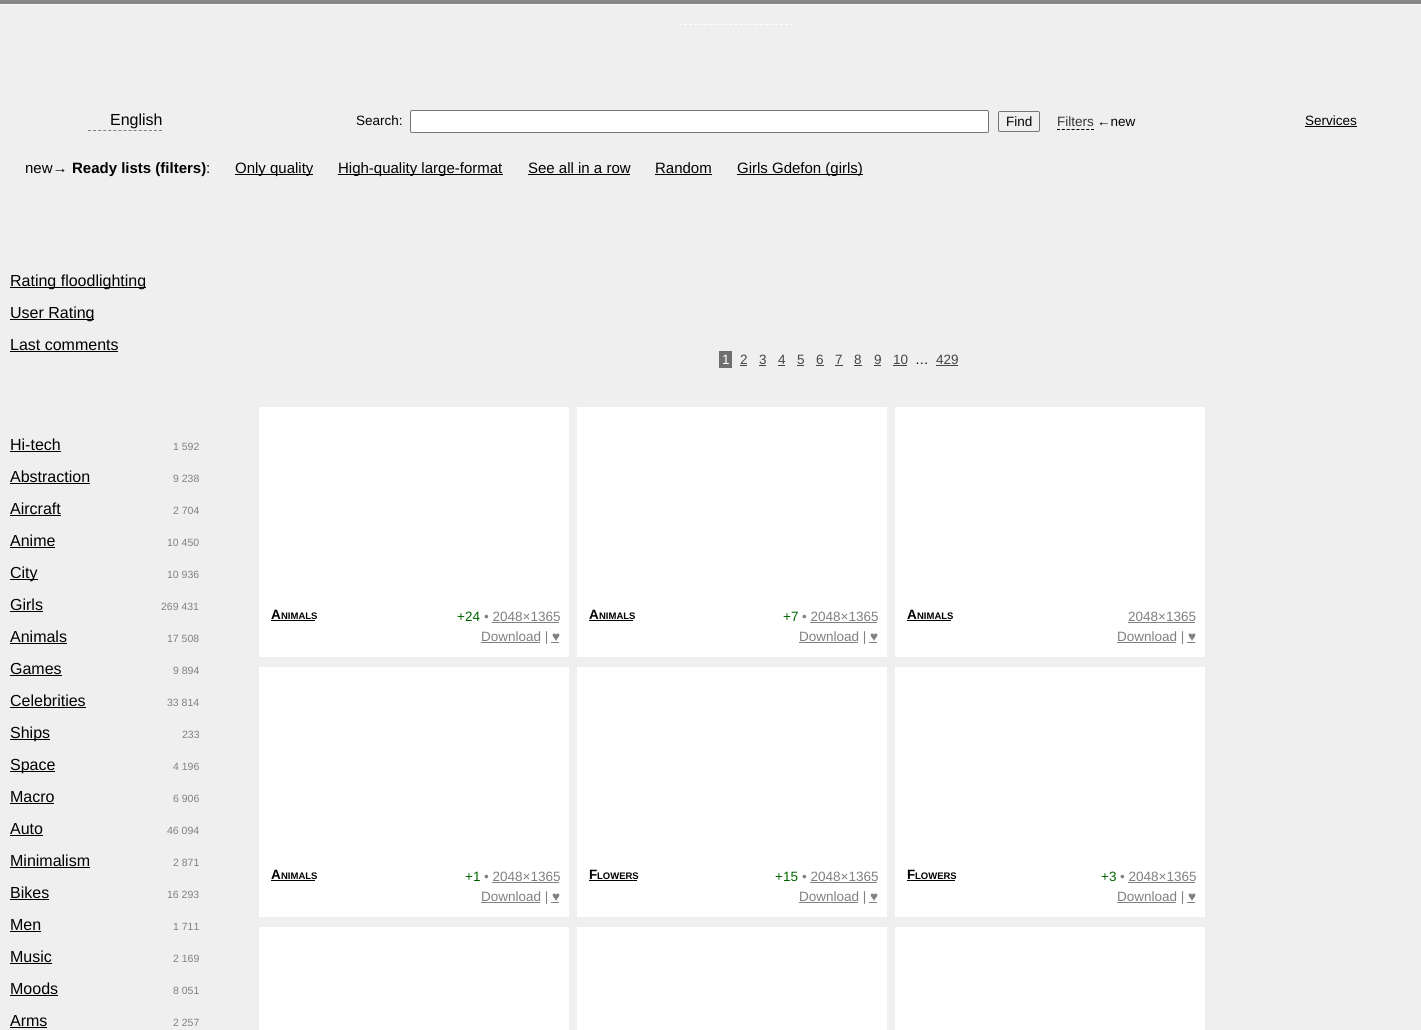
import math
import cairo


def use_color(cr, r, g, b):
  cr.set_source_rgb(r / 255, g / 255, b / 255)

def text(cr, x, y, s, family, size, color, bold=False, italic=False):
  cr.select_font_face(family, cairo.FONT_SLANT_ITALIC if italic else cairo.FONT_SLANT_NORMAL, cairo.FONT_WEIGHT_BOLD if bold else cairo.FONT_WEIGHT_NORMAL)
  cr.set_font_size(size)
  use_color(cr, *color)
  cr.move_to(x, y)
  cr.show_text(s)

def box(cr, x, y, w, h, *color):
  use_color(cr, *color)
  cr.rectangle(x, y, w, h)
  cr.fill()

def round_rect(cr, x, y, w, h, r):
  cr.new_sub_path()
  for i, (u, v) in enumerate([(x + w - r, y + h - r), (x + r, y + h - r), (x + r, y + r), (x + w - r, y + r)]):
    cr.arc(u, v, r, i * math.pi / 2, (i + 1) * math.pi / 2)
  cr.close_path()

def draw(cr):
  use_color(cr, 239, 239, 239)
  cr.paint()
  box(cr, 0, 0, 1421, 4, 135, 135, 135)
  box(cr, 0, 4, 1421, 1, 247, 247, 247)
  cr.new_path()
  cr.move_to(679, 24.5)
  cr.line_to(793, 24.5)
  use_color(cr, 255, 255, 255)
  cr.set_line_width(1)
  cr.set_dash([3, 2.05])
  cr.stroke()
  cr.new_path()
  cr.move_to(88, 130.5)
  cr.line_to(162, 130.5)
  use_color(cr, 128, 128, 128)
  cr.set_dash([3, 2.07])
  cr.stroke()
  use_color(cr, 255, 255, 255)
  round_rect(cr, 410.5, 110.5, 578, 22, 1.5)
  cr.fill_preserve()
  use_color(cr, 118, 118, 118)
  cr.set_dash([])
  cr.stroke()
  round_rect(cr, 998.5, 111.5, 41, 20, 1.5)
  cr.stroke()
  cr.new_path()
  cr.move_to(1057, 129.5)
  cr.line_to(1094, 129.5)
  use_color(cr, 0, 0, 0)
  cr.set_dash([3, 1.86])
  cr.stroke()
  box(cr, 1305, 126, 52, 1, 0, 0, 0)
  box(cr, 235, 174, 78, 1, 0, 0, 0)
  box(cr, 338, 174, 165, 1, 0, 0, 0)
  box(cr, 528, 174, 102, 1, 0, 0, 0)
  box(cr, 655, 174, 57, 1, 0, 0, 0)
  box(cr, 737, 174, 126, 1, 0, 0, 0)
  box(cr, 10, 287, 136, 1, 0, 0, 0)
  box(cr, 10, 319, 84, 1, 0, 0, 0)
  box(cr, 10, 351, 108, 1, 0, 0, 0)
  box(cr, 10, 451, 51, 1, 0, 0, 0)
  box(cr, 10, 483, 80, 1, 0, 0, 0)
  box(cr, 10, 515, 51, 1, 0, 0, 0)
  box(cr, 10, 547, 45, 1, 0, 0, 0)
  box(cr, 10, 579, 28, 1, 0, 0, 0)
  box(cr, 10, 611, 33, 1, 0, 0, 0)
  box(cr, 10, 643, 57, 1, 0, 0, 0)
  box(cr, 10, 675, 52, 1, 0, 0, 0)
  box(cr, 10, 707, 76, 1, 0, 0, 0)
  box(cr, 10, 739, 40, 1, 0, 0, 0)
  box(cr, 10, 771, 45, 1, 0, 0, 0)
  box(cr, 10, 803, 44, 1, 0, 0, 0)
  box(cr, 10, 835, 33, 1, 0, 0, 0)
  box(cr, 10, 867, 80, 1, 0, 0, 0)
  box(cr, 10, 899, 39, 1, 0, 0, 0)
  box(cr, 10, 931, 31, 1, 0, 0, 0)
  box(cr, 10, 963, 42, 1, 0, 0, 0)
  box(cr, 10, 995, 48, 1, 0, 0, 0)
  box(cr, 10, 1027, 37, 1, 0, 0, 0)
  box(cr, 719, 351, 13, 17, 111, 111, 111)
  box(cr, 740, 365, 7, 1, 68, 68, 68)
  box(cr, 759, 365, 7, 1, 68, 68, 68)
  box(cr, 778, 365, 7, 1, 68, 68, 68)
  box(cr, 797, 365, 7, 1, 68, 68, 68)
  box(cr, 816, 365, 8, 1, 68, 68, 68)
  box(cr, 835, 365, 8, 1, 68, 68, 68)
  box(cr, 854, 365, 8, 1, 68, 68, 68)
  box(cr, 874, 365, 7, 1, 68, 68, 68)
  box(cr, 893, 365, 14, 1, 68, 68, 68)
  box(cr, 936, 365, 22, 1, 68, 68, 68)
  box(cr, 259, 407, 310, 250, 255, 255, 255)
  box(cr, 271, 620, 44, 1, 0, 0, 0)
  box(cr, 492, 622, 67, 1, 128, 128, 128)
  box(cr, 481, 642, 59, 1, 128, 128, 128)
  box(cr, 551, 642, 8, 1, 128, 128, 128)
  box(cr, 577, 407, 310, 250, 255, 255, 255)
  box(cr, 589, 620, 44, 1, 0, 0, 0)
  box(cr, 810, 622, 67, 1, 128, 128, 128)
  box(cr, 799, 642, 59, 1, 128, 128, 128)
  box(cr, 869, 642, 8, 1, 128, 128, 128)
  box(cr, 895, 407, 310, 250, 255, 255, 255)
  box(cr, 907, 620, 44, 1, 0, 0, 0)
  box(cr, 1128, 622, 67, 1, 128, 128, 128)
  box(cr, 1117, 642, 59, 1, 128, 128, 128)
  box(cr, 1187, 642, 8, 1, 128, 128, 128)
  box(cr, 259, 667, 310, 250, 255, 255, 255)
  box(cr, 271, 880, 44, 1, 0, 0, 0)
  box(cr, 492, 882, 67, 1, 128, 128, 128)
  box(cr, 481, 902, 59, 1, 128, 128, 128)
  box(cr, 551, 902, 8, 1, 128, 128, 128)
  box(cr, 577, 667, 310, 250, 255, 255, 255)
  box(cr, 589, 880, 48, 1, 0, 0, 0)
  box(cr, 810, 882, 67, 1, 128, 128, 128)
  box(cr, 799, 902, 59, 1, 128, 128, 128)
  box(cr, 869, 902, 8, 1, 128, 128, 128)
  box(cr, 895, 667, 310, 250, 255, 255, 255)
  box(cr, 907, 880, 48, 1, 0, 0, 0)
  box(cr, 1128, 882, 67, 1, 128, 128, 128)
  box(cr, 1117, 902, 59, 1, 128, 128, 128)
  box(cr, 1187, 902, 8, 1, 128, 128, 128)
  box(cr, 259, 927, 310, 103, 255, 255, 255)
  box(cr, 577, 927, 310, 103, 255, 255, 255)
  box(cr, 895, 927, 310, 103, 255, 255, 255)
  text(cr, 110, 125, "English", "Liberation Sans", 16, (0, 0, 0))
  text(cr, 356, 125, "Search:", "Liberation Sans", 13.5, (0, 0, 0))
  text(cr, 1006, 126, "Find", "Liberation Sans", 13.5, (0, 0, 0))
  text(cr, 1057, 126, "Filters", "Liberation Sans", 13.5, (51, 51, 51))
  text(cr, 1097, 126, "←new", "Liberation Sans", 13.5, (0, 0, 0))
  text(cr, 1305, 125, "Services", "Liberation Sans", 13.5, (0, 0, 0))
  text(cr, 25, 173, "new→", "Liberation Sans", 15, (0, 0, 0))
  text(cr, 72, 173, "Ready lists (filters)", "Liberation Sans", 15, (0, 0, 0), bold=True)
  text(cr, 206, 173, ":", "Liberation Sans", 15, (0, 0, 0))
  text(cr, 235, 173, "Only quality", "Liberation Sans", 15, (0, 0, 0))
  text(cr, 338, 173, "High-quality large-format", "Liberation Sans", 15, (0, 0, 0))
  text(cr, 528, 173, "See all in a row", "Liberation Sans", 15, (0, 0, 0))
  text(cr, 655, 173, "Random", "Liberation Sans", 15, (0, 0, 0))
  text(cr, 737, 173, "Girls Gdefon (girls)", "Liberation Sans", 15, (0, 0, 0))
  text(cr, 10, 286, "Rating floodlighting", "Liberation Sans", 16, (0, 0, 0))
  text(cr, 10, 318, "User Rating", "Liberation Sans", 16, (0, 0, 0))
  text(cr, 10, 350, "Last comments", "Liberation Sans", 16, (0, 0, 0))
  text(cr, 10, 450, "Hi-tech", "Liberation Sans", 16, (0, 0, 0))
  text(cr, 173, 450, "1 592", "Liberation Sans", 10.5, (128, 128, 128))
  text(cr, 10, 482, "Abstraction", "Liberation Sans", 16, (0, 0, 0))
  text(cr, 173, 482, "9 238", "Liberation Sans", 10.5, (128, 128, 128))
  text(cr, 10, 514, "Aircraft", "Liberation Sans", 16, (0, 0, 0))
  text(cr, 173, 514, "2 704", "Liberation Sans", 10.5, (128, 128, 128))
  text(cr, 10, 546, "Anime", "Liberation Sans", 16, (0, 0, 0))
  text(cr, 167, 546, "10 450", "Liberation Sans", 10.5, (128, 128, 128))
  text(cr, 10, 578, "City", "Liberation Sans", 16, (0, 0, 0))
  text(cr, 167, 578, "10 936", "Liberation Sans", 10.5, (128, 128, 128))
  text(cr, 10, 610, "Girls", "Liberation Sans", 16, (0, 0, 0))
  text(cr, 161, 610, "269 431", "Liberation Sans", 10.5, (128, 128, 128))
  text(cr, 10, 642, "Animals", "Liberation Sans", 16, (0, 0, 0))
  text(cr, 167, 642, "17 508", "Liberation Sans", 10.5, (128, 128, 128))
  text(cr, 10, 674, "Games", "Liberation Sans", 16, (0, 0, 0))
  text(cr, 173, 674, "9 894", "Liberation Sans", 10.5, (128, 128, 128))
  text(cr, 10, 706, "Celebrities", "Liberation Sans", 16, (0, 0, 0))
  text(cr, 167, 706, "33 814", "Liberation Sans", 10.5, (128, 128, 128))
  text(cr, 10, 738, "Ships", "Liberation Sans", 16, (0, 0, 0))
  text(cr, 182, 738, "233", "Liberation Sans", 10.5, (128, 128, 128))
  text(cr, 10, 770, "Space", "Liberation Sans", 16, (0, 0, 0))
  text(cr, 173, 770, "4 196", "Liberation Sans", 10.5, (128, 128, 128))
  text(cr, 10, 802, "Macro", "Liberation Sans", 16, (0, 0, 0))
  text(cr, 173, 802, "6 906", "Liberation Sans", 10.5, (128, 128, 128))
  text(cr, 10, 834, "Auto", "Liberation Sans", 16, (0, 0, 0))
  text(cr, 167, 834, "46 094", "Liberation Sans", 10.5, (128, 128, 128))
  text(cr, 10, 866, "Minimalism", "Liberation Sans", 16, (0, 0, 0))
  text(cr, 173, 866, "2 871", "Liberation Sans", 10.5, (128, 128, 128))
  text(cr, 10, 898, "Bikes", "Liberation Sans", 16, (0, 0, 0))
  text(cr, 167, 898, "16 293", "Liberation Sans", 10.5, (128, 128, 128))
  text(cr, 10, 930, "Men", "Liberation Sans", 16, (0, 0, 0))
  text(cr, 173, 930, "1 711", "Liberation Sans", 10.5, (128, 128, 128))
  text(cr, 10, 962, "Music", "Liberation Sans", 16, (0, 0, 0))
  text(cr, 173, 962, "2 169", "Liberation Sans", 10.5, (128, 128, 128))
  text(cr, 10, 994, "Moods", "Liberation Sans", 16, (0, 0, 0))
  text(cr, 173, 994, "8 051", "Liberation Sans", 10.5, (128, 128, 128))
  text(cr, 10, 1026, "Arms", "Liberation Sans", 16, (0, 0, 0))
  text(cr, 173, 1026, "2 257", "Liberation Sans", 10.5, (128, 128, 128))
  text(cr, 722, 364, "1", "Liberation Sans", 13.5, (255, 255, 255))
  text(cr, 740, 364, "2", "Liberation Sans", 13.5, (68, 68, 68))
  text(cr, 759, 364, "3", "Liberation Sans", 13.5, (68, 68, 68))
  text(cr, 778, 364, "4", "Liberation Sans", 13.5, (68, 68, 68))
  text(cr, 797, 364, "5", "Liberation Sans", 13.5, (68, 68, 68))
  text(cr, 816, 364, "6", "Liberation Sans", 13.5, (68, 68, 68))
  text(cr, 835, 364, "7", "Liberation Sans", 13.5, (68, 68, 68))
  text(cr, 854, 364, "8", "Liberation Sans", 13.5, (68, 68, 68))
  text(cr, 874, 364, "9", "Liberation Sans", 13.5, (68, 68, 68))
  text(cr, 893, 364, "10", "Liberation Sans", 13.5, (68, 68, 68))
  text(cr, 915, 364, "…", "Liberation Sans", 13.5, (0, 0, 0))
  text(cr, 936, 364, "429", "Liberation Sans", 13.5, (68, 68, 68))
  text(cr, 271, 619, "A", "Liberation Sans", 13.5, (0, 0, 0), bold=True)
  text(cr, 281, 619, "NIMALS", "Liberation Sans", 9.5, (0, 0, 0), bold=True)
  text(cr, 457, 621, "+24", "Liberation Sans", 13.5, (0, 100, 0))
  text(cr, 484, 621, "• 2048×1365", "Liberation Sans", 13.5, (128, 128, 128))
  text(cr, 481, 641, "Download | ♥", "Liberation Sans", 13.5, (128, 128, 128))
  text(cr, 589, 619, "A", "Liberation Sans", 13.5, (0, 0, 0), bold=True)
  text(cr, 599, 619, "NIMALS", "Liberation Sans", 9.5, (0, 0, 0), bold=True)
  text(cr, 783, 621, "+7", "Liberation Sans", 13.5, (0, 100, 0))
  text(cr, 802, 621, "• 2048×1365", "Liberation Sans", 13.5, (128, 128, 128))
  text(cr, 799, 641, "Download | ♥", "Liberation Sans", 13.5, (128, 128, 128))
  text(cr, 907, 619, "A", "Liberation Sans", 13.5, (0, 0, 0), bold=True)
  text(cr, 917, 619, "NIMALS", "Liberation Sans", 9.5, (0, 0, 0), bold=True)
  text(cr, 1128, 621, "2048×1365", "Liberation Sans", 13.5, (128, 128, 128))
  text(cr, 1117, 641, "Download | ♥", "Liberation Sans", 13.5, (128, 128, 128))
  text(cr, 271, 879, "A", "Liberation Sans", 13.5, (0, 0, 0), bold=True)
  text(cr, 281, 879, "NIMALS", "Liberation Sans", 9.5, (0, 0, 0), bold=True)
  text(cr, 465, 881, "+1", "Liberation Sans", 13.5, (0, 100, 0))
  text(cr, 484, 881, "• 2048×1365", "Liberation Sans", 13.5, (128, 128, 128))
  text(cr, 481, 901, "Download | ♥", "Liberation Sans", 13.5, (128, 128, 128))
  text(cr, 589, 879, "F", "Liberation Sans", 13.5, (0, 0, 0), bold=True)
  text(cr, 597, 879, "LOWERS", "Liberation Sans", 9.5, (0, 0, 0), bold=True)
  text(cr, 775, 881, "+15", "Liberation Sans", 13.5, (0, 100, 0))
  text(cr, 802, 881, "• 2048×1365", "Liberation Sans", 13.5, (128, 128, 128))
  text(cr, 799, 901, "Download | ♥", "Liberation Sans", 13.5, (128, 128, 128))
  text(cr, 907, 879, "F", "Liberation Sans", 13.5, (0, 0, 0), bold=True)
  text(cr, 915, 879, "LOWERS", "Liberation Sans", 9.5, (0, 0, 0), bold=True)
  text(cr, 1101, 881, "+3", "Liberation Sans", 13.5, (0, 100, 0))
  text(cr, 1120, 881, "• 2048×1365", "Liberation Sans", 13.5, (128, 128, 128))
  text(cr, 1117, 901, "Download | ♥", "Liberation Sans", 13.5, (128, 128, 128))


surface = cairo.ImageSurface(cairo.FORMAT_RGB24, 1421, 1030)
cr = cairo.Context(surface)
options = cairo.FontOptions()
options.set_hint_metrics(cairo.HINT_METRICS_OFF)
options.set_hint_style(cairo.HINT_STYLE_NONE)
cr.set_font_options(options)
cr.set_miter_limit(4)
draw(cr)
surface.write_to_png("out.png")
